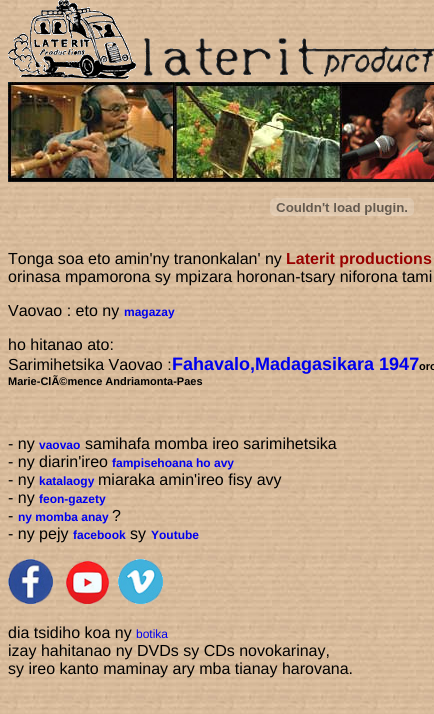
import math
import cairo


def use_color(cr, r, g, b):
  cr.set_source_rgb(r / 255, g / 255, b / 255)

def text(cr, x, y, s, family, size, color, bold=False, italic=False):
  cr.select_font_face(family, cairo.FONT_SLANT_ITALIC if italic else cairo.FONT_SLANT_NORMAL, cairo.FONT_WEIGHT_BOLD if bold else cairo.FONT_WEIGHT_NORMAL)
  cr.set_font_size(size)
  use_color(cr, *color)
  cr.move_to(x, y)
  cr.show_text(s)

def picture(cr, path, x, y, w, h):
  cr.save()
  cr.set_source_surface(cairo.ImageSurface.create_from_png(path), x, y)
  cr.rectangle(x, y, w, h)
  cr.fill()
  cr.restore()

def draw(cr):
  use_color(cr, 255, 255, 255)
  cr.paint()
  picture(cr, "img_01.png", 0, 0, 434, 714)
  picture(cr, "img_02.png", 8, 0, 128, 79)
  picture(cr, "img_03.png", 143, 38, 291, 39)
  picture(cr, "img_04.png", 8, 82, 167, 100)
  picture(cr, "img_05.png", 175, 82, 167, 100)
  picture(cr, "img_06.png", 342, 82, 92, 100)
  picture(cr, "img_07.png", 270, 198, 144, 18)
  picture(cr, "img_08.png", 8, 559, 45, 45)
  picture(cr, "img_09.png", 66, 561, 43, 43)
  picture(cr, "img_10.png", 118, 559, 45, 45)
  text(cr, 8, 264, "Tonga soa eto amin'ny tranonkalan' ny", "Liberation Sans", 16, (0, 0, 0))
  text(cr, 286, 264, "Laterit productions", "Liberation Sans", 16, (153, 0, 0), bold=True)
  text(cr, 8, 282, "orinasa mpamorona sy mpizara horonan-tsary niforona tami", "Liberation Sans", 16, (0, 0, 0))
  text(cr, 8, 316, "Vaovao : eto ny", "Liberation Sans", 16, (0, 0, 0))
  text(cr, 124, 316, "magazay", "Liberation Sans", 12, (0, 0, 238), bold=True)
  text(cr, 8, 350, "ho hitanao ato:", "Liberation Sans", 16, (0, 0, 0))
  text(cr, 8, 370, "Sarimihetsika Vaovao :", "Liberation Sans", 16, (0, 0, 0))
  text(cr, 172, 370, "Fahavalo,Madagasikara 1947", "Liberation Sans", 18, (0, 0, 238), bold=True)
  text(cr, 419, 370, "oro", "Liberation Sans", 11, (0, 0, 0), bold=True)
  text(cr, 8, 385, "Marie-ClÃ©mence Andriamonta-Paes", "Liberation Sans", 11, (0, 0, 0), bold=True)
  text(cr, 8, 449, "- ny", "Liberation Sans", 16, (0, 0, 0))
  text(cr, 39, 449, "vaovao", "Liberation Sans", 12, (0, 0, 238), bold=True)
  text(cr, 85, 449, "samihafa momba ireo sarimihetsika", "Liberation Sans", 16, (0, 0, 0))
  text(cr, 8, 467, "- ny diarin'ireo", "Liberation Sans", 16, (0, 0, 0))
  text(cr, 112, 467, "fampisehoana ho avy", "Liberation Sans", 12, (0, 0, 238), bold=True)
  text(cr, 8, 485, "- ny", "Liberation Sans", 16, (0, 0, 0))
  text(cr, 39, 485, "katalaogy", "Liberation Sans", 12, (0, 0, 238), bold=True)
  text(cr, 98, 485, "miaraka amin'ireo fisy avy", "Liberation Sans", 16, (0, 0, 0))
  text(cr, 8, 503, "- ny", "Liberation Sans", 16, (0, 0, 0))
  text(cr, 39, 503, "feon-gazety", "Liberation Sans", 12, (0, 0, 238), bold=True)
  text(cr, 8, 521, "-", "Liberation Sans", 16, (0, 0, 0))
  text(cr, 18, 521, "ny momba anay", "Liberation Sans", 12, (0, 0, 238), bold=True)
  text(cr, 112, 521, "?", "Liberation Sans", 16, (0, 0, 0))
  text(cr, 8, 539, "- ny pejy", "Liberation Sans", 16, (0, 0, 0))
  text(cr, 73, 539, "facebook", "Liberation Sans", 12, (0, 0, 238), bold=True)
  text(cr, 130, 539, "sy", "Liberation Sans", 16, (0, 0, 0))
  text(cr, 151, 539, "Youtube", "Liberation Sans", 12, (0, 0, 238), bold=True)
  text(cr, 8, 638, "dia tsidiho koa ny", "Liberation Sans", 16, (0, 0, 0))
  text(cr, 136, 638, "botika", "Liberation Sans", 12, (0, 0, 238))
  text(cr, 8, 656, "izay hahitanao ny DVDs sy CDs novokarinay,", "Liberation Sans", 16, (0, 0, 0))
  text(cr, 8, 674, "sy ireo kanto maminay ary mba tianay harovana.", "Liberation Sans", 16, (0, 0, 0))


surface = cairo.ImageSurface(cairo.FORMAT_RGB24, 434, 714)
cr = cairo.Context(surface)
options = cairo.FontOptions()
options.set_hint_metrics(cairo.HINT_METRICS_OFF)
options.set_hint_style(cairo.HINT_STYLE_NONE)
cr.set_font_options(options)
cr.set_miter_limit(4)
draw(cr)
surface.write_to_png("out.png")
